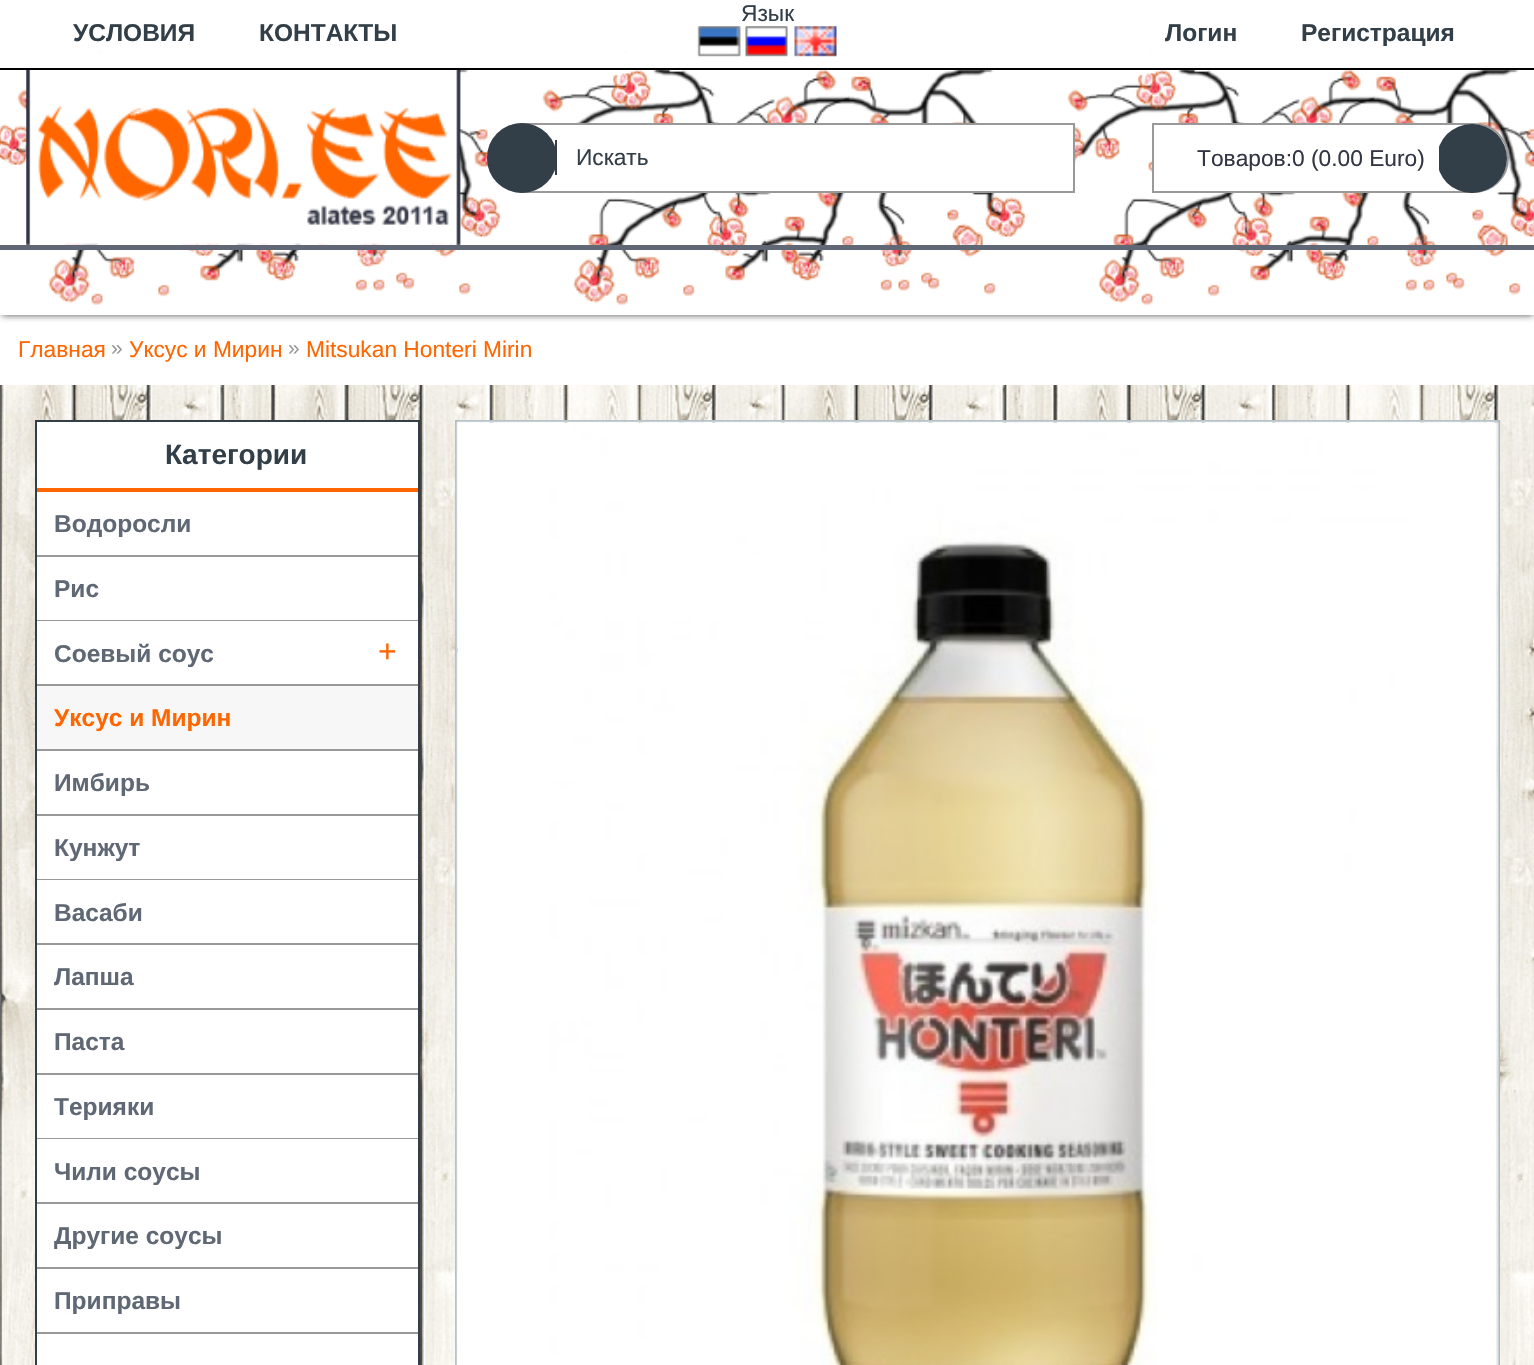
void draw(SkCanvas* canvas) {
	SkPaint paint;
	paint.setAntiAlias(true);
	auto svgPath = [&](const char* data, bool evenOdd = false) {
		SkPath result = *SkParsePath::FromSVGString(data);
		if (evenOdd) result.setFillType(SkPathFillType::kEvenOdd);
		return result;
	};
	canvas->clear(0xffffffff);
	canvas->drawImageRect(SkImages::DeferredFromEncodedData(SkData::MakeFromFileName("img1.png")), SkRect::MakeXYWH(0, 385, 1534, 980), SkSamplingOptions());
	paint.setColor(0xb3000000);
	paint.setMaskFilter(SkMaskFilter::MakeBlur(kNormal_SkBlurStyle, 3.5));
	canvas->drawRect(SkRect::MakeXYWH(2, 4, 1531, 311), paint);
	paint.setMaskFilter(nullptr);
	paint.setColor(0xffffffff);
	canvas->drawRect(SkRect::MakeXYWH(0, 0, 1534, 315), paint);
	canvas->drawImageRect(SkImages::DeferredFromEncodedData(SkData::MakeFromFileName("img2.png")), SkRect::MakeXYWH(0, 35, 1534, 270), SkSamplingOptions());
	SkFont f1(fontMgr->matchFamilyStyle("Liberation Sans", SkFontStyle::Normal()), 22.75);
	f1.setSubpixel(true);
	paint.setColor(0xff333f48);
	canvas->drawString("Язык", 741, 21, f1, paint);
	canvas->drawImageRect(SkImages::DeferredFromEncodedData(SkData::MakeFromFileName("img3.png")), SkRect::MakeXYWH(697, 26, 44, 31), SkSamplingOptions());
	canvas->drawImageRect(SkImages::DeferredFromEncodedData(SkData::MakeFromFileName("img4.png")), SkRect::MakeXYWH(745, 26, 43, 31), SkSamplingOptions());
	canvas->drawImageRect(SkImages::DeferredFromEncodedData(SkData::MakeFromFileName("img5.png")), SkRect::MakeXYWH(794, 26, 43, 31), SkSamplingOptions());
	SkFont f2(fontMgr->matchFamilyStyle("Liberation Sans", SkFontStyle::Bold()), 24.5);
	f2.setSubpixel(true);
	canvas->drawString("УСЛОВИЯ", 73, 41, f2, paint);
	canvas->drawString("КОНТАКТЫ", 259, 41, f2, paint);
	canvas->drawString("Логин", 1165, 41, f2, paint);
	canvas->drawString("Регистрация", 1301, 41, f2, paint);
	canvas->drawImageRect(SkImages::DeferredFromEncodedData(SkData::MakeFromFileName("img6.png")), SkRect::MakeXYWH(26, 70, 435, 175), SkSamplingOptions());
	paint.setColor(0xffffffff);
	canvas->drawPath(svgPath("M522 124H1074V192H522C503 192 488 177 488 158C488 139 503 124 522 124Z"), paint);
	paint.setStroke(true);
	paint.setStrokeWidth(2);
	paint.setColor(0xff999999);
	canvas->drawPath(svgPath("M522 124H1074V192H522C503 192 488 177 488 158C488 139 503 124 522 124Z"), paint);
	paint.setStroke(false);
	paint.setColor(0xff333f48);
	canvas->drawCircle(522, 158, 35, paint);
	canvas->drawRect(SkRect::MakeXYWH(555, 140, 2, 35), paint);
	canvas->drawString("Искать", 576, 165, f1, paint);
	paint.setColor(0xffffffff);
	canvas->drawPath(svgPath("M1153 124H1474C1493 124 1508 139 1508 158C1508 177 1493 192 1474 192H1153Z"), paint);
	paint.setStroke(true);
	paint.setColor(0xff999999);
	canvas->drawPath(svgPath("M1153 124H1474C1493 124 1508 139 1508 158C1508 177 1493 192 1474 192H1153Z"), paint);
	paint.setStroke(false);
	paint.setColor(0xff333745);
	canvas->drawString("Товаров:0 (0.00 Euro)", 1197, 166, f1, paint);
	paint.setColor(0xff333f48);
	canvas->drawRoundRect(SkRect::MakeXYWH(1437, 124, 70, 69), 34.5, 34.5, paint);
	paint.setColor(0xffffffff);
	canvas->drawRect(SkRect::MakeXYWH(1437, 142, 2, 33), paint);
	paint.setColor(0xff5f6874);
	canvas->drawRect(SkRect::MakeXYWH(0, 245, 1534, 5), paint);
	paint.setColor(0xff000000);
	canvas->drawRect(SkRect::MakeXYWH(0, 68, 1534, 2), paint);
	paint.setColor(0xffff6600);
	canvas->drawString("Главная", 18, 357, f1, paint);
	SkFont f3(fontMgr->matchFamilyStyle("Liberation Sans", SkFontStyle::Normal()), 21);
	f3.setSubpixel(true);
	paint.setColor(0xff999999);
	canvas->drawString("»", 111, 355, f3, paint);
	paint.setColor(0xffff6600);
	canvas->drawString("Уксус и Мирин", 129, 357, f1, paint);
	paint.setColor(0xff999999);
	canvas->drawString("»", 288, 355, f3, paint);
	paint.setColor(0xffff6600);
	canvas->drawString("Mitsukan Honteri Mirin", 306, 357, f1, paint);
	paint.setColor(0xffffffff);
	canvas->drawRect(SkRect::MakeXYWH(36, 421, 383, 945), paint);
	paint.setStroke(true);
	paint.setColor(0xff333f48);
	canvas->drawRect(SkRect::MakeXYWH(36, 421, 383, 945), paint);
	paint.setStroke(false);
	paint.setColor(0xffff6600);
	canvas->drawRect(SkRect::MakeXYWH(37, 488, 381, 4), paint);
	SkFont f4(fontMgr->matchFamilyStyle("Liberation Sans", SkFontStyle::Bold()), 28);
	f4.setSubpixel(true);
	paint.setColor(0xff333f48);
	canvas->drawString("Категории", 165, 464, f4, paint);
	paint.setColor(0xff999999);
	canvas->drawRect(SkRect::MakeXYWH(37, 555, 381, 2), paint);
	paint.setColor(0xff5f6874);
	canvas->drawString("Водоросли", 54, 532, f2, paint);
	paint.setColor(0xff999999);
	canvas->drawRect(SkRect::MakeXYWH(37, 620, 381, 1), paint);
	paint.setColor(0xff5f6874);
	canvas->drawString("Рис", 54, 597, f2, paint);
	paint.setColor(0xff999999);
	canvas->drawRect(SkRect::MakeXYWH(37, 684, 381, 2), paint);
	paint.setColor(0xff5f6874);
	canvas->drawString("Соевый соус", 54, 662, f2, paint);
	SkFont f5(fontMgr->matchFamilyStyle("Liberation Sans", SkFontStyle::Normal()), 32);
	f5.setSubpixel(true);
	paint.setColor(0xffff6600);
	canvas->drawString("+", 378, 662, f5, paint);
	paint.setColor(0xfff7f7f7);
	canvas->drawRect(SkRect::MakeXYWH(37, 686, 381, 63), paint);
	paint.setColor(0xff999999);
	canvas->drawRect(SkRect::MakeXYWH(37, 749, 381, 2), paint);
	paint.setColor(0xffff6600);
	canvas->drawString("Уксус и Мирин", 54, 726, f2, paint);
	paint.setColor(0xff999999);
	canvas->drawRect(SkRect::MakeXYWH(37, 814, 381, 2), paint);
	paint.setColor(0xff5f6874);
	canvas->drawString("Имбирь", 54, 791, f2, paint);
	paint.setColor(0xff999999);
	canvas->drawRect(SkRect::MakeXYWH(37, 879, 381, 1), paint);
	paint.setColor(0xff5f6874);
	canvas->drawString("Кунжут", 54, 856, f2, paint);
	paint.setColor(0xff999999);
	canvas->drawRect(SkRect::MakeXYWH(37, 943, 381, 2), paint);
	paint.setColor(0xff5f6874);
	canvas->drawString("Васаби", 54, 921, f2, paint);
	paint.setColor(0xff999999);
	canvas->drawRect(SkRect::MakeXYWH(37, 1008, 381, 2), paint);
	paint.setColor(0xff5f6874);
	canvas->drawString("Лапша", 54, 985, f2, paint);
	paint.setColor(0xff999999);
	canvas->drawRect(SkRect::MakeXYWH(37, 1073, 381, 2), paint);
	paint.setColor(0xff5f6874);
	canvas->drawString("Паста", 54, 1050, f2, paint);
	paint.setColor(0xff999999);
	canvas->drawRect(SkRect::MakeXYWH(37, 1138, 381, 1), paint);
	paint.setColor(0xff5f6874);
	canvas->drawString("Терияки", 54, 1115, f2, paint);
	paint.setColor(0xff999999);
	canvas->drawRect(SkRect::MakeXYWH(37, 1202, 381, 2), paint);
	paint.setColor(0xff5f6874);
	canvas->drawString("Чили соусы", 54, 1180, f2, paint);
	paint.setColor(0xff999999);
	canvas->drawRect(SkRect::MakeXYWH(37, 1267, 381, 2), paint);
	paint.setColor(0xff5f6874);
	canvas->drawString("Другие соусы", 54, 1244, f2, paint);
	paint.setColor(0xff999999);
	canvas->drawRect(SkRect::MakeXYWH(37, 1332, 381, 2), paint);
	paint.setColor(0xff5f6874);
	canvas->drawString("Приправы", 54, 1309, f2, paint);
	paint.setStroke(true);
	paint.setColor(0xffa9b8c0);
	canvas->drawRect(SkRect::MakeXYWH(456, 421, 1043, 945), paint);
	canvas->drawImageRect(SkImages::DeferredFromEncodedData(SkData::MakeFromFileName("img7.png")), SkRect::MakeXYWH(455, 420, 1044, 945), SkSamplingOptions());
}
